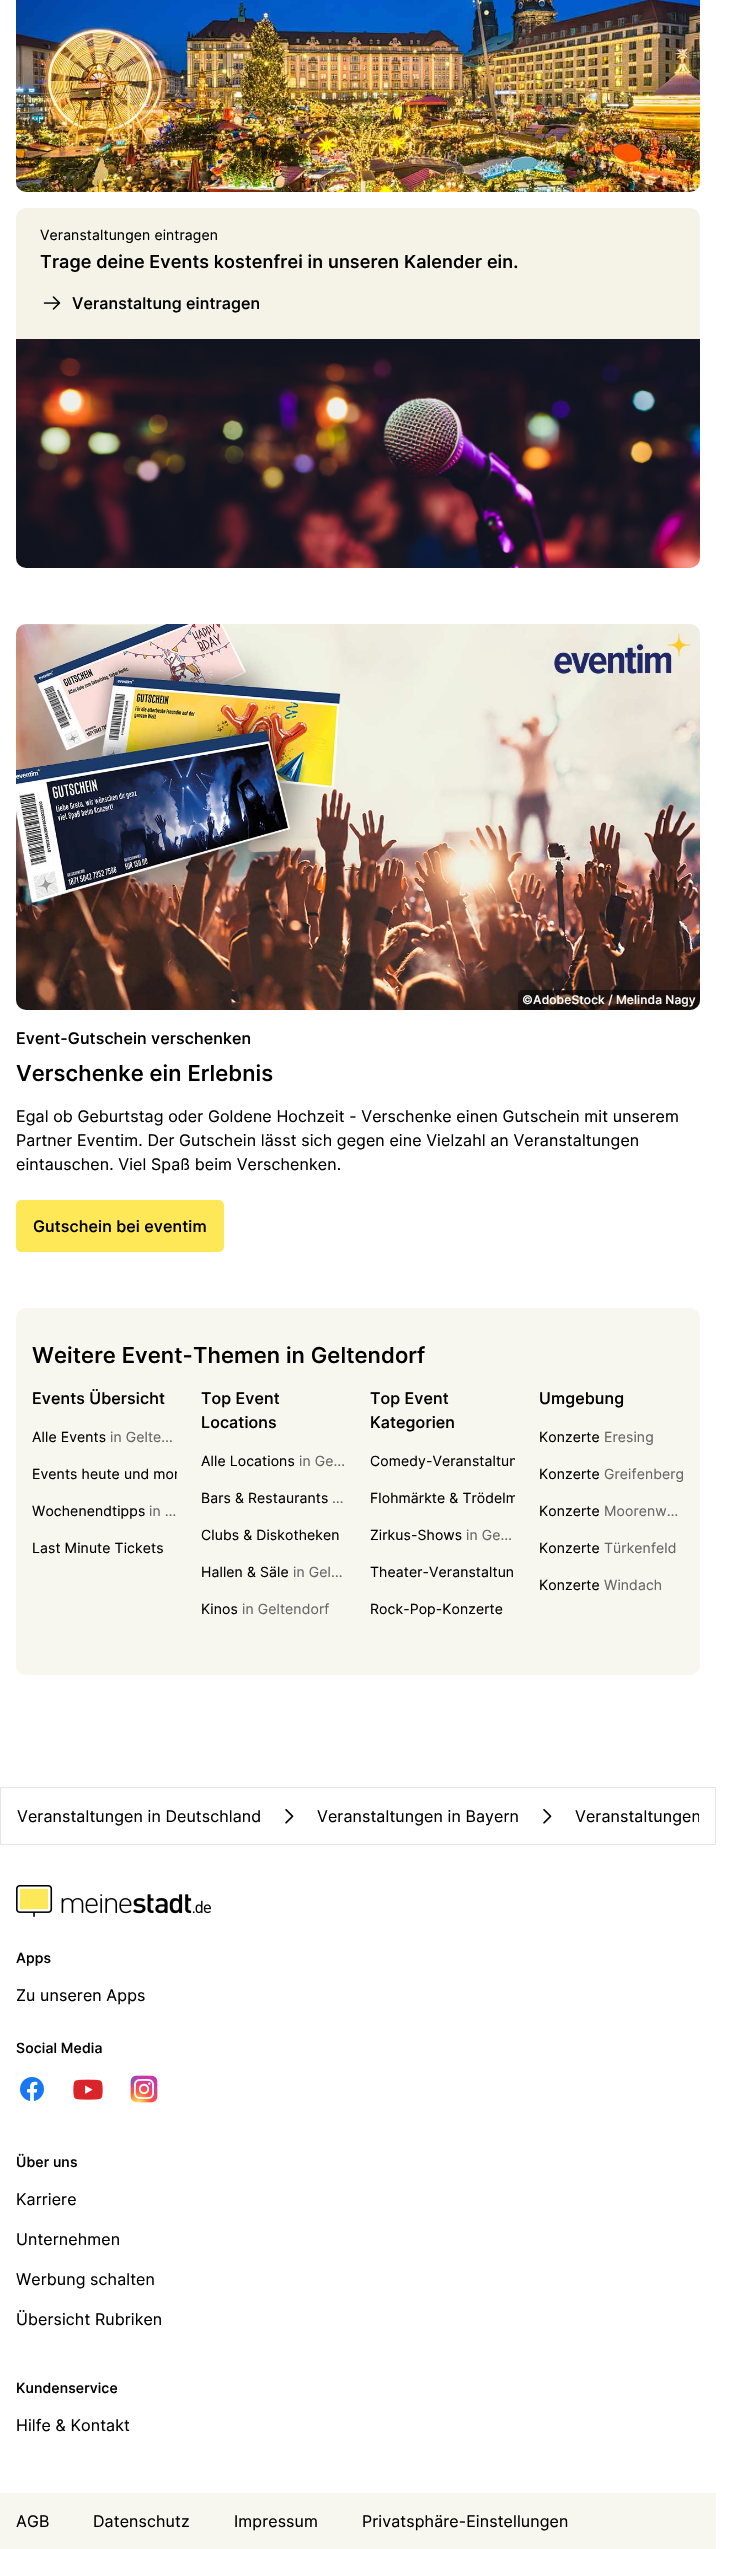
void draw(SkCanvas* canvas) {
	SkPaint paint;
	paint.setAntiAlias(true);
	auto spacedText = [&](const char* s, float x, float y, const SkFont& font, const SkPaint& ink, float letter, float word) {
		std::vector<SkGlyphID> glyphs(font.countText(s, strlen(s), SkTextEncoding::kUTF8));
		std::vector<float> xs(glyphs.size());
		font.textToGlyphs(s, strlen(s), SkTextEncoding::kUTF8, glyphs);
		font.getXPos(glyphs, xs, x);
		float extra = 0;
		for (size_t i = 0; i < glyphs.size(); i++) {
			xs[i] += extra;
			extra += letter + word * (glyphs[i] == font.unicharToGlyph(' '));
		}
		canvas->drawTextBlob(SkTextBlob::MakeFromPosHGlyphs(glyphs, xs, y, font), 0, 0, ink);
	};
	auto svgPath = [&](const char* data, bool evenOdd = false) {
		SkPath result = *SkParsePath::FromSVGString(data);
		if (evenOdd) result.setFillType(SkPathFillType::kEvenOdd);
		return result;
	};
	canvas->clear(0xffffffff);
	paint.setColor(0xfff5f2e8);
	canvas->drawRoundRect(SkRect::MakeXYWH(16, -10, 684, 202), 10, 10, paint);
	canvas->drawImageRect(SkImages::DeferredFromEncodedData(SkData::MakeFromFileName("img1.png")), SkRect::MakeXYWH(16, 0, 684, 192), SkSamplingOptions());
	canvas->drawRoundRect(SkRect::MakeXYWH(16, 208, 684, 360), 10, 10, paint);
	SkFont f1(fontMgr->matchFamilyStyle("Inter", SkFontStyle::Normal()), 14);
	f1.setSubpixel(true);
	paint.setColor(0xff000000);
	spacedText("Veranstaltungen eintragen", 40, 240, f1, paint, 0.1, 0);
	SkFont f2(fontMgr->matchFamilyStyle("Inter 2", SkFontStyle(500, SkFontStyle::kNormal_Width, SkFontStyle::kUpright_Slant)), 18);
	f2.setSubpixel(true);
	spacedText("Trage deine Events kostenfrei in unseren Kalender ein.", 40, 268, f2, paint, 0.1, 0);
	canvas->drawImageRect(SkImages::DeferredFromEncodedData(SkData::MakeFromFileName("img2.png")), SkRect::MakeXYWH(43, 296, 18, 14), SkSamplingOptions());
	SkFont f3(fontMgr->matchFamilyStyle("Inter", SkFontStyle(500, SkFontStyle::kNormal_Width, SkFontStyle::kUpright_Slant)), 16);
	f3.setSubpixel(true);
	spacedText("Veranstaltung eintragen", 72, 309, f3, paint, 0.1, 0);
	canvas->drawImageRect(SkImages::DeferredFromEncodedData(SkData::MakeFromFileName("img3.png")), SkRect::MakeXYWH(16, 339, 684, 229), SkSamplingOptions());
	canvas->drawImageRect(SkImages::DeferredFromEncodedData(SkData::MakeFromFileName("img4.png")), SkRect::MakeXYWH(16, 624, 684, 386), SkSamplingOptions());
	paint.setColor(0x80000000);
	canvas->drawPath(svgPath("M523 990H700V1000C700 1005.5 695.5 1010 690 1010H518V995C518 992 520 990 523 990Z"), paint);
	SkFont f4(fontMgr->matchFamilyStyle("Inter", SkFontStyle(500, SkFontStyle::kNormal_Width, SkFontStyle::kUpright_Slant)), 12);
	f4.setSubpixel(true);
	paint.setColor(0xffffffff);
	spacedText("©AdobeStock / Melinda Nagy", 522, 1004, f4, paint, 0.1, 0);
	paint.setColor(0xff000000);
	spacedText("Event-Gutschein verschenken", 16, 1044, f3, paint, 0.1, 0);
	SkFont f5(fontMgr->matchFamilyStyle("Inter 2", SkFontStyle(500, SkFontStyle::kNormal_Width, SkFontStyle::kUpright_Slant)), 22);
	f5.setSubpixel(true);
	spacedText("Verschenke ein Erlebnis", 16, 1081, f5, paint, 0.1, 0);
	SkFont f6(fontMgr->matchFamilyStyle("Inter", SkFontStyle::Normal()), 16);
	f6.setSubpixel(true);
	spacedText("Egal ob Geburtstag oder Goldene Hochzeit - Verschenke einen Gutschein mit unserem", 16, 1122, f6, paint, 0.1, 0);
	spacedText("Partner Eventim. Der Gutschein lässt sich gegen eine Vielzahl an Veranstaltungen", 16, 1146, f6, paint, 0.1, 0);
	spacedText("eintauschen. Viel Spaß beim Verschenken.", 16, 1170, f6, paint, 0.1, 0);
	paint.setColor(0xffffe857);
	canvas->drawRoundRect(SkRect::MakeXYWH(16.5, 1200.5, 207, 51), 4.5, 4.5, paint);
	paint.setStroke(true);
	paint.setStrokeWidth(1);
	canvas->drawRoundRect(SkRect::MakeXYWH(16.5, 1200.5, 207, 51), 4.5, 4.5, paint);
	paint.setStroke(false);
	paint.setColor(0xff000000);
	spacedText("Gutschein bei eventim", 33, 1232, f3, paint, 0.1, 0);
	paint.setColor(0xfff7f6ef);
	canvas->drawRoundRect(SkRect::MakeXYWH(16, 1308, 684, 367), 10, 10, paint);
	paint.setColor(0xff000000);
	spacedText("Weitere Event-Themen in Geltendorf", 32, 1363, f5, paint, 0.1, 0);
	spacedText("Events Übersicht", 32, 1404, f3, paint, 0.1, 0);
	spacedText("Alle Events", 32, 1442, f1, paint, 0.1, 0);
	paint.setColor(0xff666666);
	spacedText("in Gelte…", 110, 1442, f1, paint, 0.1, 0);
	canvas->save();
	canvas->clipRect(SkRect::MakeXYWH(32, 1463, 145, 21));
	paint.setColor(0xff000000);
	spacedText("Events heute und mor", 32, 1479, f1, paint, 0.1, 0);
	canvas->restore();
	spacedText("Wochenendtipps", 32, 1516, f1, paint, 0.1, 0);
	paint.setColor(0xff666666);
	spacedText("in …", 149, 1516, f1, paint, 0.1, 0);
	paint.setColor(0xff000000);
	spacedText("Last Minute Tickets", 32, 1553, f1, paint, 0.1, 0);
	spacedText("Top Event", 201, 1404, f3, paint, 0.1, 0);
	spacedText("Locations", 201, 1428, f3, paint, 0.1, 0);
	spacedText("Alle Locations", 201, 1466, f1, paint, 0.1, 0);
	paint.setColor(0xff666666);
	spacedText("in Ge…", 299, 1466, f1, paint, 0.1, 0);
	paint.setColor(0xff000000);
	spacedText("Bars & Restaurants", 201, 1503, f1, paint, 0.1, 0);
	paint.setColor(0xff666666);
	spacedText("…", 332, 1503, f1, paint, 0.1, 0);
	paint.setColor(0xff000000);
	spacedText("Clubs & Diskotheken", 201, 1540, f1, paint, 0.1, 0);
	spacedText("Hallen & Säle", 201, 1577, f1, paint, 0.1, 0);
	paint.setColor(0xff666666);
	spacedText("in Gel…", 293, 1577, f1, paint, 0.1, 0);
	paint.setColor(0xff000000);
	spacedText("Kinos", 201, 1614, f1, paint, 0.1, 0);
	paint.setColor(0xff666666);
	spacedText("in Geltendorf", 242, 1614, f1, paint, 0.1, 0);
	paint.setColor(0xff000000);
	spacedText("Top Event", 370, 1404, f3, paint, 0.1, 0);
	spacedText("Kategorien", 370, 1428, f3, paint, 0.1, 0);
	canvas->save();
	canvas->clipRect(SkRect::MakeXYWH(370, 1450, 145, 21));
	spacedText("Comedy-Veranstaltun", 370, 1466, f1, paint, 0.1, 0);
	canvas->restore();
	canvas->save();
	canvas->clipRect(SkRect::MakeXYWH(370, 1487, 145, 21));
	spacedText("Flohmärkte & Trödelm", 370, 1503, f1, paint, 0.1, 0);
	canvas->restore();
	spacedText("Zirkus-Shows", 370, 1540, f1, paint, 0.1, 0);
	paint.setColor(0xff666666);
	spacedText("in Ge…", 466, 1540, f1, paint, 0.1, 0);
	paint.setColor(0xff000000);
	spacedText("Theater-Veranstaltun", 370, 1577, f1, paint, 0.1, 0);
	spacedText("Rock-Pop-Konzerte", 370, 1614, f1, paint, 0.1, 0);
	spacedText("Umgebung", 539, 1404, f3, paint, 0.1, 0);
	spacedText("Konzerte", 539, 1442, f1, paint, 0.1, 0);
	paint.setColor(0xff666666);
	spacedText("Eresing", 604, 1442, f1, paint, 0.1, 0);
	paint.setColor(0xff000000);
	spacedText("Konzerte", 539, 1479, f1, paint, 0.1, 0);
	paint.setColor(0xff666666);
	spacedText("Greifenberg", 604, 1479, f1, paint, 0.1, 0);
	paint.setColor(0xff000000);
	spacedText("Konzerte", 539, 1516, f1, paint, 0.1, 0);
	paint.setColor(0xff666666);
	spacedText("Moorenw…", 604, 1516, f1, paint, 0.1, 0);
	paint.setColor(0xff000000);
	spacedText("Konzerte", 539, 1553, f1, paint, 0.1, 0);
	paint.setColor(0xff666666);
	spacedText("Türkenfeld", 604, 1553, f1, paint, 0.1, 0);
	paint.setColor(0xff000000);
	spacedText("Konzerte", 539, 1590, f1, paint, 0.1, 0);
	paint.setColor(0xff666666);
	spacedText("Windach", 604, 1590, f1, paint, 0.1, 0);
	paint.setStroke(true);
	paint.setColor(0xffe5e5e5);
	canvas->drawRect(SkRect::MakeXYWH(0.5, 1787.5, 715, 57), paint);
	paint.setStroke(false);
	paint.setColor(0xff000000);
	spacedText("Veranstaltungen in Deutschland", 17, 1822, f6, paint, 0.1, 0);
	canvas->drawImageRect(SkImages::DeferredFromEncodedData(SkData::MakeFromFileName("img5.png")), SkRect::MakeXYWH(285, 1809, 9, 15), SkSamplingOptions());
	spacedText("Veranstaltungen in Bayern", 317, 1822, f6, paint, 0.1, 0);
	canvas->drawImageRect(SkImages::DeferredFromEncodedData(SkData::MakeFromFileName("img5.png")), SkRect::MakeXYWH(543, 1809, 9, 15), SkSamplingOptions());
	canvas->save();
	canvas->clipRect(SkRect::MakeXYWH(17, 1788, 682, 56));
	spacedText("Veranstaltungen", 575, 1822, f6, paint, 0.1, 0);
	canvas->restore();
	canvas->drawImageRect(SkImages::DeferredFromEncodedData(SkData::MakeFromFileName("img6.png")), SkRect::MakeXYWH(16, 1885, 195, 32), SkSamplingOptions());
	SkFont f7(fontMgr->matchFamilyStyle("Inter", SkFontStyle(500, SkFontStyle::kNormal_Width, SkFontStyle::kUpright_Slant)), 14);
	f7.setSubpixel(true);
	spacedText("Apps", 16, 1963, f7, paint, 0.1, 0);
	spacedText("Zu unseren Apps", 16, 2001, f6, paint, 0.1, 0);
	spacedText("Social Media", 16, 2053, f7, paint, 0.1, 0);
	canvas->drawImageRect(SkImages::DeferredFromEncodedData(SkData::MakeFromFileName("img7.png")), SkRect::MakeXYWH(20, 2077, 24, 24), SkSamplingOptions());
	canvas->drawImageRect(SkImages::DeferredFromEncodedData(SkData::MakeFromFileName("img8.png")), SkRect::MakeXYWH(73, 2079, 30, 21), SkSamplingOptions());
	canvas->drawImageRect(SkImages::DeferredFromEncodedData(SkData::MakeFromFileName("img9.png")), SkRect::MakeXYWH(130, 2075, 28, 28), SkSamplingOptions());
	spacedText("Über uns", 16, 2167, f7, paint, 0.1, 0);
	spacedText("Karriere", 16, 2205, f6, paint, 0.1, 0);
	spacedText("Unternehmen", 16, 2245, f6, paint, 0.1, 0);
	spacedText("Werbung schalten", 16, 2285, f6, paint, 0.1, 0);
	spacedText("Übersicht Rubriken", 16, 2325, f6, paint, 0.1, 0);
	spacedText("Kundenservice", 16, 2393, f7, paint, 0.1, 0);
	spacedText("Hilfe & Kontakt", 16, 2431, f6, paint, 0.1, 0);
	paint.setColor(0xfff7f6ef);
	canvas->drawRect(SkRect::MakeXYWH(0, 2493, 716, 56), paint);
	paint.setColor(0xff000000);
	spacedText("AGB", 16, 2527, f6, paint, 0.1, 0);
	spacedText("Datenschutz", 93, 2527, f6, paint, 0.1, 0);
	spacedText("Impressum", 234, 2527, f6, paint, 0.1, 0);
	spacedText("Privatsphäre-Einstellungen", 362, 2527, f6, paint, 0.1, 0);
}
